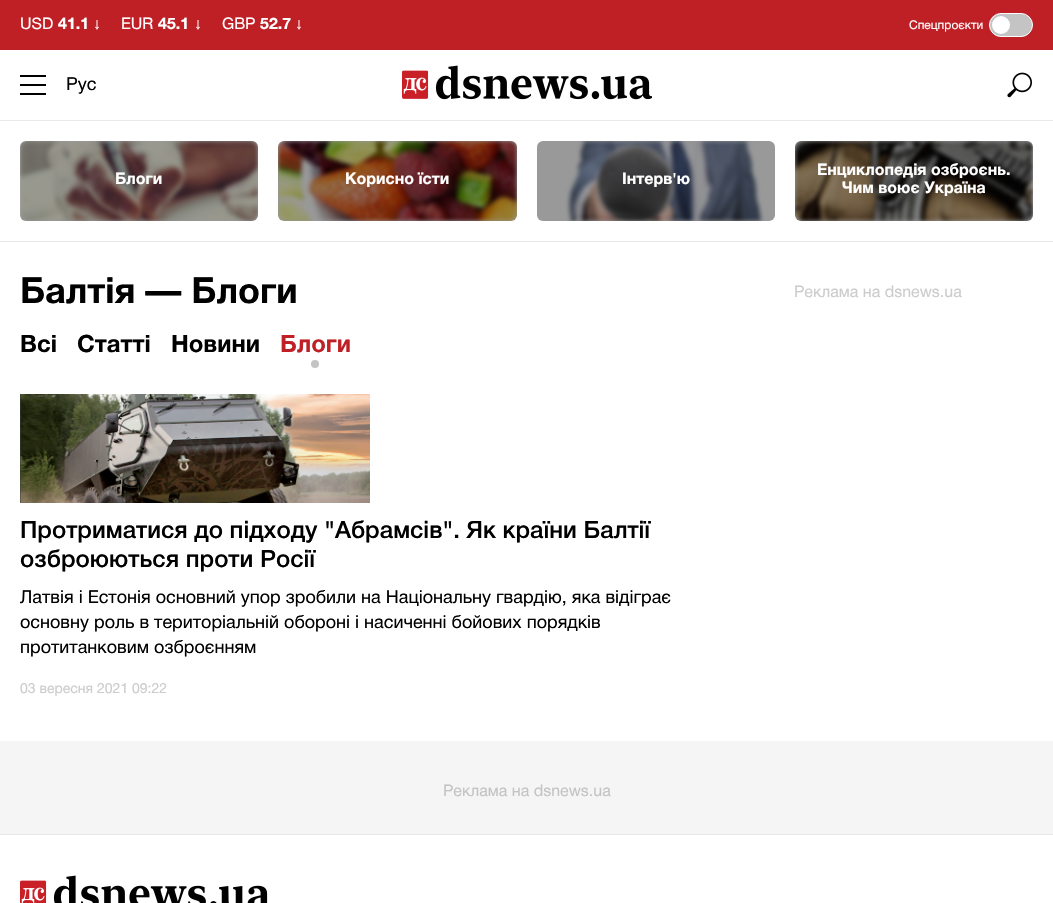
void draw(SkCanvas* canvas) {
	SkPaint paint;
	paint.setAntiAlias(true);
	canvas->clear(0xffffffff);
	paint.setColor(0xffbe2026);
	canvas->drawRect(SkRect::MakeXYWH(0, 0, 1053, 50), paint);
	SkFont f1(fontMgr->matchFamilyStyle("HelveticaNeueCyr", SkFontStyle::Normal()), 16);
	f1.setSubpixel(true);
	paint.setColor(0xffffffff);
	canvas->drawString("USD", 20, 29, f1, paint);
	SkFont f2(fontMgr->matchFamilyStyle("HelveticaNeueCyr", SkFontStyle::Bold()), 16);
	f2.setSubpixel(true);
	canvas->drawString("41.1", 58, 29, f2, paint);
	SkFont f3(fontMgr->matchFamilyStyle("Liberation Sans", SkFontStyle::Normal()), 16);
	f3.setSubpixel(true);
	canvas->drawString("↓", 93, 29, f3, paint);
	canvas->drawString("EUR", 121, 29, f1, paint);
	canvas->drawString("45.1", 158, 29, f2, paint);
	canvas->drawString("↓", 194, 29, f3, paint);
	canvas->drawString("GBP", 222, 29, f1, paint);
	canvas->drawString("52.7", 260, 29, f2, paint);
	canvas->drawString("↓", 295, 29, f3, paint);
	SkFont f4(fontMgr->matchFamilyStyle("HelveticaNeueCyr", SkFontStyle::Normal()), 12);
	f4.setSubpixel(true);
	canvas->drawString("Спецпроєкти", 909, 29, f4, paint);
	paint.setColor(0xffc4c4c4);
	canvas->drawRoundRect(SkRect::MakeXYWH(989.5, 13.5, 43, 23), 11.5, 11.5, paint);
	paint.setStroke(true);
	paint.setStrokeWidth(1);
	paint.setColor(0xffffffff);
	canvas->drawRoundRect(SkRect::MakeXYWH(989.5, 13.5, 43, 23), 11.5, 11.5, paint);
	paint.setStroke(false);
	canvas->drawCircle(1001, 25, 9, paint);
	paint.setColor(0xffe8e8e8);
	canvas->drawRect(SkRect::MakeXYWH(0, 120, 1053, 1), paint);
	paint.setColor(0xff000000);
	canvas->drawRect(SkRect::MakeXYWH(20, 75, 26, 2), paint);
	canvas->drawRect(SkRect::MakeXYWH(20, 84, 26, 2), paint);
	canvas->drawRect(SkRect::MakeXYWH(20, 93, 26, 2), paint);
	SkFont f5(fontMgr->matchFamilyStyle("HelveticaNeueCyr", SkFontStyle::Normal()), 18);
	f5.setSubpixel(true);
	canvas->drawString("Рус", 66, 90, f5, paint);
	canvas->drawImageRect(SkImages::DeferredFromEncodedData(SkData::MakeFromFileName("img1.png")), SkRect::MakeXYWH(402, 65, 250, 35), SkSamplingOptions());
	canvas->drawImageRect(SkImages::DeferredFromEncodedData(SkData::MakeFromFileName("img2.png")), SkRect::MakeXYWH(1007, 72, 25, 26), SkSamplingOptions());
	paint.setColor(0xffe8e8e8);
	canvas->drawRect(SkRect::MakeXYWH(0, 241, 1053, 1), paint);
	canvas->drawImageRect(SkImages::DeferredFromEncodedData(SkData::MakeFromFileName("img3.png")), SkRect::MakeXYWH(20, 141, 238, 80), SkSamplingOptions());
	paint.setColor(0x66000000);
	canvas->drawRoundRect(SkRect::MakeXYWH(20, 141, 238, 80), 6, 6, paint);
	{
		const SkColor colors[] = {0xffffffff, 0x00ffffff};
		const float stops[] = {0, 1};
		const SkPoint ends[] = {{0, 172}, {22, 172}};
		paint.setShader(SkGradientShader::MakeLinear(ends, colors, stops, 2, SkTileMode::kClamp));
		paint.setAlpha(255);
	}
	canvas->drawRect(SkRect::MakeXYWH(20, 144, 2, 74), paint);
	paint.setShader(nullptr);
	paint.setColor(0xffffffff);
	canvas->drawString("Блоги", 115, 184, f2, paint);
	canvas->drawImageRect(SkImages::DeferredFromEncodedData(SkData::MakeFromFileName("img4.png")), SkRect::MakeXYWH(278, 141, 239, 80), SkSamplingOptions());
	paint.setColor(0x66000000);
	canvas->drawRoundRect(SkRect::MakeXYWH(278, 141, 239, 80), 6, 6, paint);
	paint.setColor(0xffffffff);
	canvas->drawString("Корисно їсти", 345, 184, f2, paint);
	canvas->drawImageRect(SkImages::DeferredFromEncodedData(SkData::MakeFromFileName("img5.png")), SkRect::MakeXYWH(565, 141, 200, 80), SkSamplingOptions());
	paint.setColor(0x66000000);
	canvas->drawRoundRect(SkRect::MakeXYWH(537, 141, 238, 80), 6, 6, paint);
	paint.setColor(0xffffffff);
	canvas->drawString("Інтерв'ю", 622, 184, f2, paint);
	canvas->drawImageRect(SkImages::DeferredFromEncodedData(SkData::MakeFromFileName("img6.png")), SkRect::MakeXYWH(795, 141, 238, 80), SkSamplingOptions());
	paint.setColor(0x66000000);
	canvas->drawRoundRect(SkRect::MakeXYWH(795, 141, 238, 80), 6, 6, paint);
	paint.setColor(0xffffffff);
	canvas->drawString("Енциклопедія озброєнь.", 817, 175, f2, paint);
	canvas->drawString("Чим воює Україна", 842, 193, f2, paint);
	{
		const SkColor colors[] = {0x00ffffff, 0xffffffff};
		const float stops[] = {0, 1};
		const SkPoint ends[] = {{1031, 172}, {1053, 172}};
		paint.setShader(SkGradientShader::MakeLinear(ends, colors, stops, 2, SkTileMode::kClamp));
		paint.setAlpha(255);
	}
	canvas->drawRect(SkRect::MakeXYWH(1031, 143, 2, 76), paint);
	SkFont f6(fontMgr->matchFamilyStyle("HelveticaNeueCyr", SkFontStyle::Bold()), 36);
	f6.setSubpixel(true);
	paint.setShader(nullptr);
	paint.setColor(0xff000000);
	canvas->drawString("Балтія — Блоги", 20, 303, f6, paint);
	SkFont f7(fontMgr->matchFamilyStyle("HelveticaNeueCyr", SkFontStyle::Bold()), 24);
	f7.setSubpixel(true);
	canvas->drawString("Всі", 20, 352, f7, paint);
	canvas->drawString("Статті", 77, 352, f7, paint);
	canvas->drawString("Новини", 171, 352, f7, paint);
	paint.setColor(0xffbe2026);
	canvas->drawString("Блоги", 280, 352, f7, paint);
	paint.setColor(0xffc4c4c4);
	canvas->drawCircle(315, 364, 4, paint);
	canvas->drawImageRect(SkImages::DeferredFromEncodedData(SkData::MakeFromFileName("img7.png")), SkRect::MakeXYWH(20, 394, 350, 109), SkSamplingOptions());
	SkFont f8(fontMgr->matchFamilyStyle("HelveticaNeueCyr", SkFontStyle(500, SkFontStyle::kNormal_Width, SkFontStyle::kUpright_Slant)), 24);
	f8.setSubpixel(true);
	paint.setColor(0xff000000);
	canvas->drawString("Протриматися до підходу \"Абрамсів\". Як країни Балтії", 20, 538, f8, paint);
	canvas->drawString("озброюються проти Росії", 20, 567, f8, paint);
	canvas->drawString("Латвія і Естонія основний упор зробили на Національну гвардію, яка відіграє", 20, 603, f5, paint);
	canvas->drawString("основну роль в територіальній обороні і насиченні бойових порядків", 20, 628, f5, paint);
	canvas->drawString("протитанковим озброєнням", 20, 653, f5, paint);
	SkFont f9(fontMgr->matchFamilyStyle("HelveticaNeueCyr", SkFontStyle::Normal()), 14);
	f9.setSubpixel(true);
	paint.setColor(0xffcccccc);
	canvas->drawString("03 вересня 2021 09:22", 20, 693, f9, paint);
	canvas->drawString("Реклама на dsnews.ua", 794, 297, f1, paint);
	paint.setColor(0xfff5f5f5);
	canvas->drawRect(SkRect::MakeXYWH(0, 741, 1053, 93), paint);
	paint.setColor(0xffc4c4c4);
	canvas->drawString("Реклама на dsnews.ua", 443, 796, f1, paint);
	paint.setColor(0xffe8e8e8);
	canvas->drawRect(SkRect::MakeXYWH(0, 834, 1053, 1), paint);
	canvas->drawImageRect(SkImages::DeferredFromEncodedData(SkData::MakeFromFileName("img8.png")), SkRect::MakeXYWH(20, 875, 248, 28), SkSamplingOptions());
}
